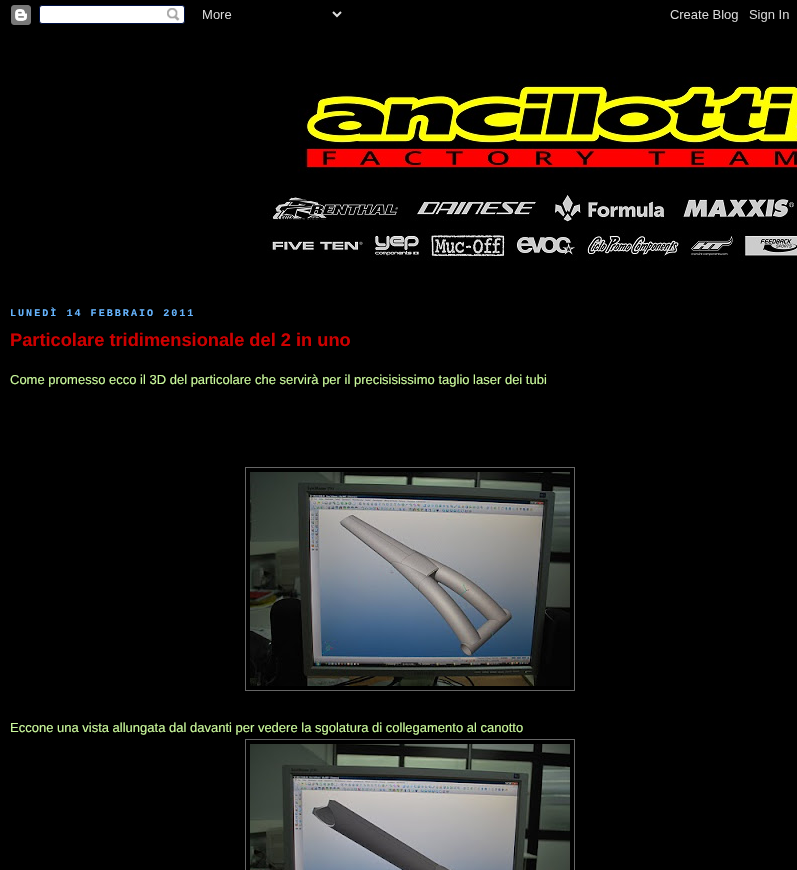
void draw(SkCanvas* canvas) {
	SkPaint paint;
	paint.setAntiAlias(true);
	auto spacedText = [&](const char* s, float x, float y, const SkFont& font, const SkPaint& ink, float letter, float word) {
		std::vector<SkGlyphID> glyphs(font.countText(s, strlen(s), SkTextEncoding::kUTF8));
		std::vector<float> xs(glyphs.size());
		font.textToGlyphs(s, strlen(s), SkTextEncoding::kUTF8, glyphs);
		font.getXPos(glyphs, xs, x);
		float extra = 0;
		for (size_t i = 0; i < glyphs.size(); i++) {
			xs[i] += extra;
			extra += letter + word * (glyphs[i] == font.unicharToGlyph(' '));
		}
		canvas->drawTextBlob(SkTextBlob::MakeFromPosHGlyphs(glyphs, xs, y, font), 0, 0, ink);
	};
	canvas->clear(0xff000000);
	canvas->drawImageRect(SkImages::DeferredFromEncodedData(SkData::MakeFromFileName("img1.png")), SkRect::MakeXYWH(11, 5, 778, 20), SkSamplingOptions());
	canvas->drawImageRect(SkImages::DeferredFromEncodedData(SkData::MakeFromFileName("img2.png")), SkRect::MakeXYWH(267, 77, 530, 184), SkSamplingOptions());
	SkFont f1(fontMgr->matchFamilyStyle("Liberation Mono", SkFontStyle::Bold()), 10.1);
	f1.setSubpixel(true);
	paint.setColor(0xff66b5ff);
	spacedText("LUNEDÌ 14 FEBBRAIO 2011", 10, 316, f1, paint, 2, 0);
	SkFont f2(fontMgr->matchFamilyStyle("Liberation Sans", SkFontStyle::Bold()), 18.25);
	f2.setSubpixel(true);
	paint.setColor(0xffcc0000);
	canvas->drawString("Particolare tridimensionale del 2 in uno", 10, 346, f2, paint);
	SkFont f3(fontMgr->matchFamilyStyle("Liberation Sans", SkFontStyle::Normal()), 13);
	f3.setSubpixel(true);
	paint.setColor(0xffcaf99b);
	canvas->drawString("Come promesso ecco il 3D del particolare che servirà per il precisisissimo taglio laser dei tubi", 10, 384, f3, paint);
	paint.setStroke(true);
	paint.setStrokeWidth(1);
	paint.setColor(0xff666666);
	canvas->drawRect(SkRect::MakeXYWH(245.5, 467.5, 329, 223), paint);
	canvas->drawImageRect(SkImages::DeferredFromEncodedData(SkData::MakeFromFileName("img3.png")), SkRect::MakeXYWH(250, 472, 320, 214), SkSamplingOptions());
	paint.setStroke(false);
	paint.setColor(0xffcaf99b);
	canvas->drawString("Eccone una vista allungata dal davanti per vedere la sgolatura di collegamento al canotto", 10, 732, f3, paint);
	paint.setStroke(true);
	paint.setColor(0xff666666);
	canvas->drawRect(SkRect::MakeXYWH(245.5, 739.5, 329, 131), paint);
	canvas->drawImageRect(SkImages::DeferredFromEncodedData(SkData::MakeFromFileName("img4.png")), SkRect::MakeXYWH(250, 744, 320, 126), SkSamplingOptions());
}
